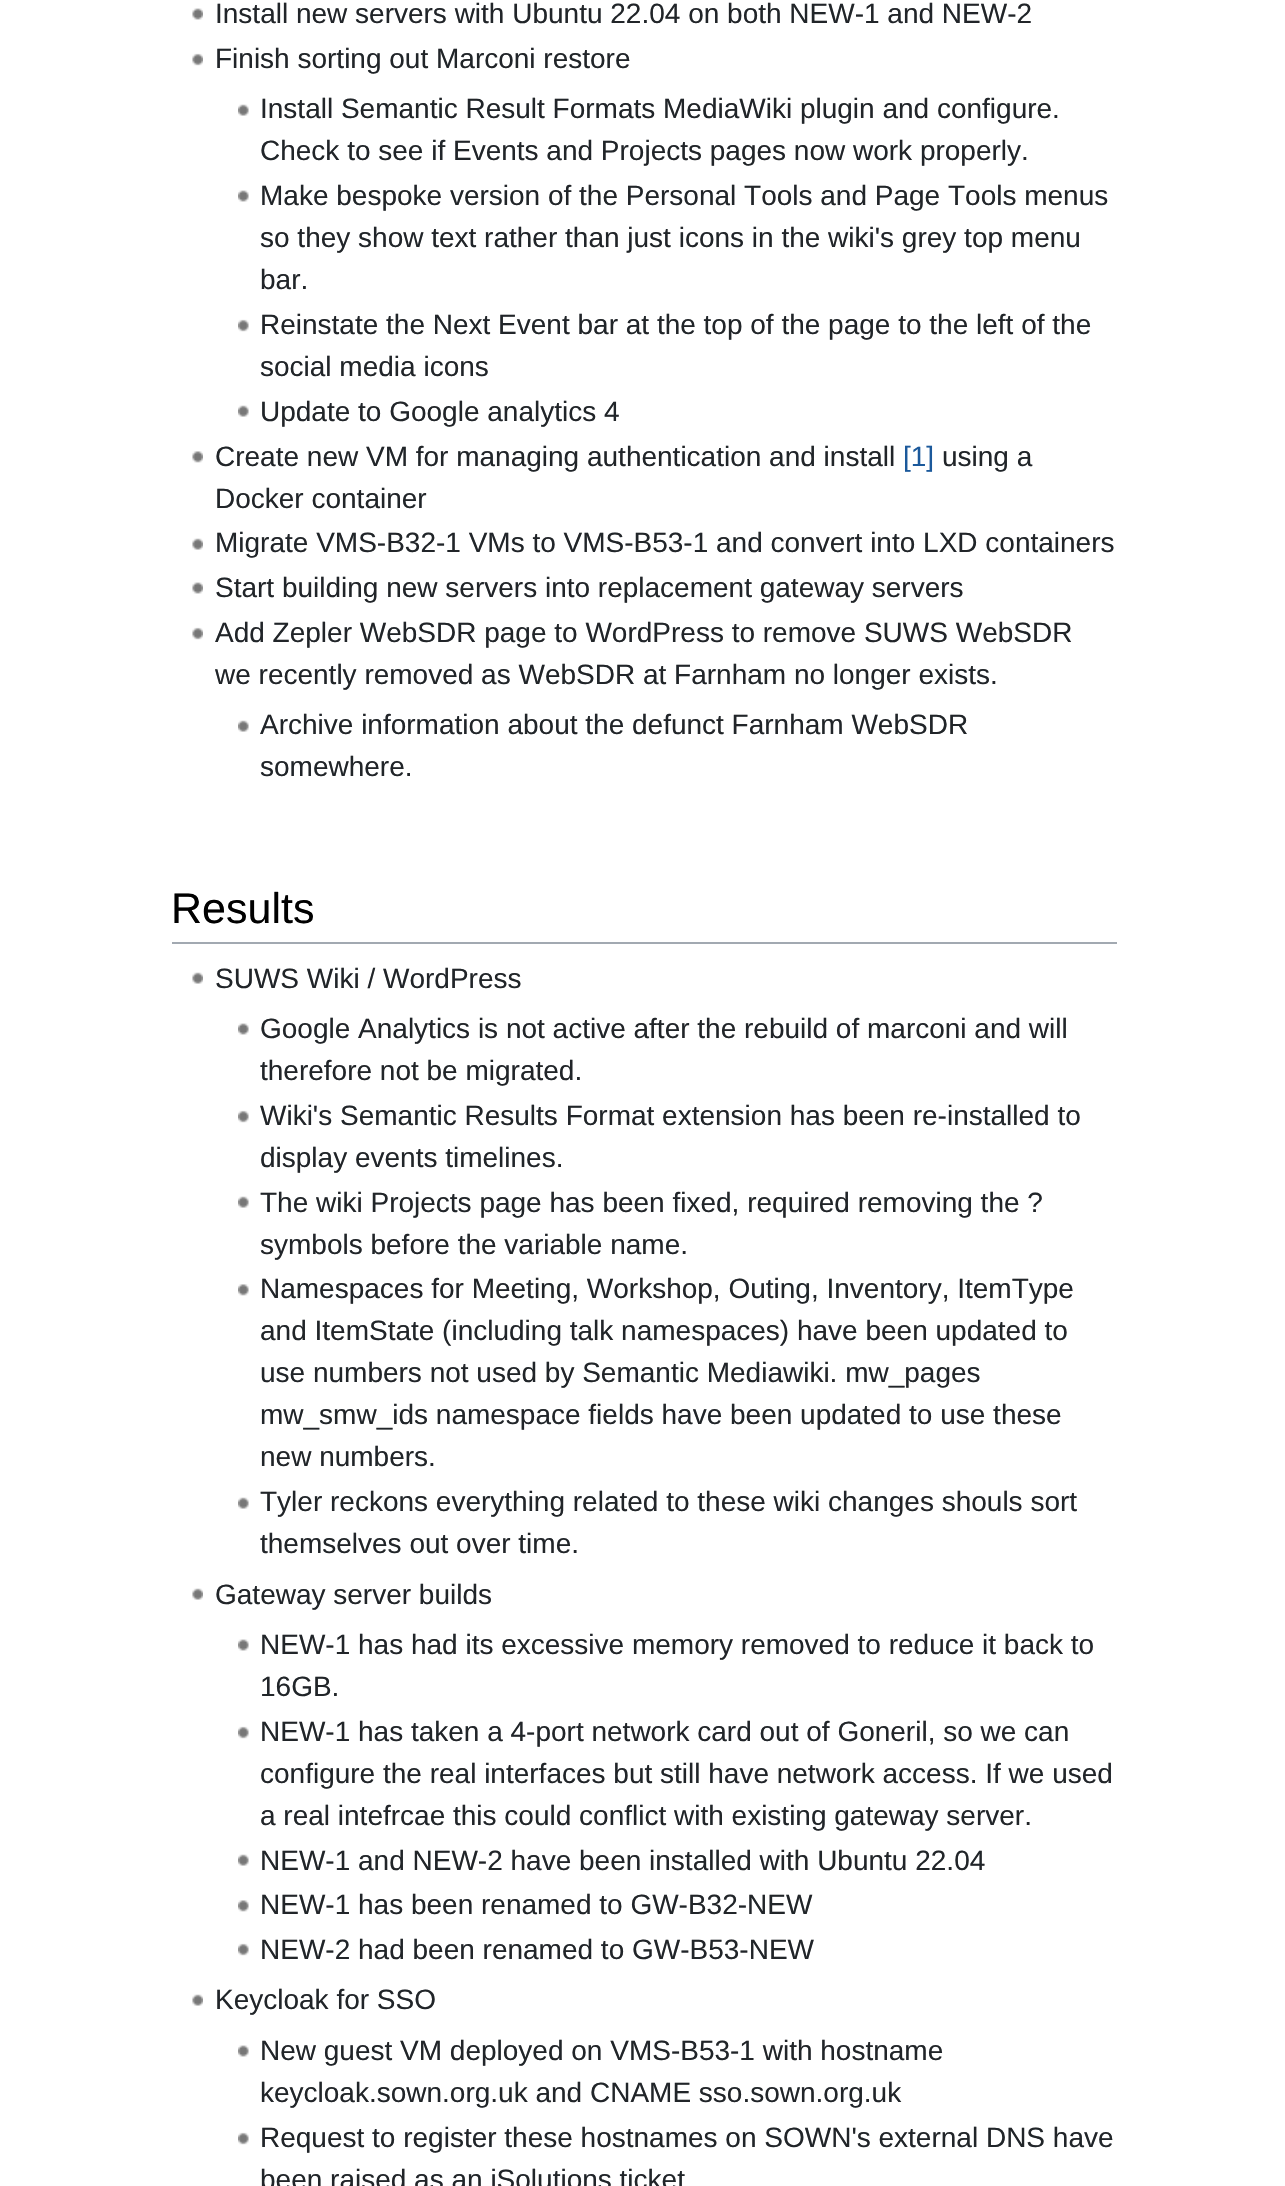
void draw(SkCanvas* canvas) {
	SkPaint paint;
	paint.setAntiAlias(true);
	canvas->clear(0xffffffff);
	canvas->drawImageRect(SkImages::DeferredFromEncodedData(SkData::MakeFromFileName("img1.png")), SkRect::MakeXYWH(192, 8, 11, 12), SkSamplingOptions());
	SkFont f1(fontMgr->matchFamilyStyle("Liberation Sans", SkFontStyle::Normal()), 28);
	f1.setSubpixel(true);
	paint.setColor(0xff212529);
	canvas->drawString("Install new servers with Ubuntu 22.04 on both NEW-1 and NEW-2", 215, 23, f1, paint);
	canvas->drawImageRect(SkImages::DeferredFromEncodedData(SkData::MakeFromFileName("img2.png")), SkRect::MakeXYWH(192, 53, 11, 13), SkSamplingOptions());
	canvas->drawString("Finish sorting out Marconi restore", 215, 68, f1, paint);
	canvas->drawImageRect(SkImages::DeferredFromEncodedData(SkData::MakeFromFileName("img3.png")), SkRect::MakeXYWH(238, 104, 11, 12), SkSamplingOptions());
	canvas->drawString("Install Semantic Result Formats MediaWiki plugin and configure.", 260, 118, f1, paint);
	canvas->drawString("Check to see if Events and Projects pages now work properly.", 260, 160, f1, paint);
	canvas->drawImageRect(SkImages::DeferredFromEncodedData(SkData::MakeFromFileName("img4.png")), SkRect::MakeXYWH(238, 190, 11, 12), SkSamplingOptions());
	canvas->drawString("Make bespoke version of the Personal Tools and Page Tools menus", 260, 205, f1, paint);
	canvas->drawString("so they show text rather than just icons in the wiki's grey top menu", 260, 247, f1, paint);
	canvas->drawString("bar.", 260, 289, f1, paint);
	canvas->drawImageRect(SkImages::DeferredFromEncodedData(SkData::MakeFromFileName("img5.png")), SkRect::MakeXYWH(238, 319, 11, 13), SkSamplingOptions());
	canvas->drawString("Reinstate the Next Event bar at the top of the page to the left of the", 260, 334, f1, paint);
	canvas->drawString("social media icons", 260, 376, f1, paint);
	canvas->drawImageRect(SkImages::DeferredFromEncodedData(SkData::MakeFromFileName("img3.png")), SkRect::MakeXYWH(238, 405, 11, 12), SkSamplingOptions());
	canvas->drawString("Update to Google analytics 4", 260, 421, f1, paint);
	canvas->drawImageRect(SkImages::DeferredFromEncodedData(SkData::MakeFromFileName("img6.png")), SkRect::MakeXYWH(192, 451, 11, 12), SkSamplingOptions());
	canvas->drawString("Create new VM for managing authentication and install", 215, 466, f1, paint);
	paint.setColor(0xff1b599b);
	canvas->drawString("[1]", 903, 466, f1, paint);
	paint.setColor(0xff212529);
	canvas->drawString("using a", 942, 466, f1, paint);
	canvas->drawString("Docker container", 215, 508, f1, paint);
	canvas->drawImageRect(SkImages::DeferredFromEncodedData(SkData::MakeFromFileName("img7.png")), SkRect::MakeXYWH(192, 538, 11, 12), SkSamplingOptions());
	canvas->drawString("Migrate VMS-B32-1 VMs to VMS-B53-1 and convert into LXD containers", 215, 552, f1, paint);
	canvas->drawImageRect(SkImages::DeferredFromEncodedData(SkData::MakeFromFileName("img1.png")), SkRect::MakeXYWH(192, 582, 11, 12), SkSamplingOptions());
	canvas->drawString("Start building new servers into replacement gateway servers", 215, 597, f1, paint);
	canvas->drawImageRect(SkImages::DeferredFromEncodedData(SkData::MakeFromFileName("img2.png")), SkRect::MakeXYWH(192, 627, 11, 13), SkSamplingOptions());
	canvas->drawString("Add Zepler WebSDR page to WordPress to remove SUWS WebSDR", 215, 642, f1, paint);
	canvas->drawString("we recently removed as WebSDR at Farnham no longer exists.", 215, 684, f1, paint);
	canvas->drawImageRect(SkImages::DeferredFromEncodedData(SkData::MakeFromFileName("img3.png")), SkRect::MakeXYWH(238, 720, 11, 12), SkSamplingOptions());
	canvas->drawString("Archive information about the defunct Farnham WebSDR", 260, 734, f1, paint);
	canvas->drawString("somewhere.", 260, 776, f1, paint);
	paint.setColor(0xffa2a9b1);
	canvas->drawRect(SkRect::MakeXYWH(172, 942, 945, 2), paint);
	SkFont f2(fontMgr->matchFamilyStyle("Liberation Sans", SkFontStyle::Normal()), 43);
	f2.setSubpixel(true);
	paint.setColor(0xff000000);
	canvas->drawString("Results", 171, 923, f2, paint);
	canvas->drawImageRect(SkImages::DeferredFromEncodedData(SkData::MakeFromFileName("img7.png")), SkRect::MakeXYWH(192, 972, 11, 12), SkSamplingOptions());
	paint.setColor(0xff212529);
	canvas->drawString("SUWS Wiki / WordPress", 215, 988, f1, paint);
	canvas->drawImageRect(SkImages::DeferredFromEncodedData(SkData::MakeFromFileName("img4.png")), SkRect::MakeXYWH(238, 1023, 11, 12), SkSamplingOptions());
	canvas->drawString("Google Analytics is not active after the rebuild of marconi and will", 260, 1038, f1, paint);
	canvas->drawString("therefore not be migrated.", 260, 1080, f1, paint);
	canvas->drawImageRect(SkImages::DeferredFromEncodedData(SkData::MakeFromFileName("img5.png")), SkRect::MakeXYWH(238, 1110, 11, 13), SkSamplingOptions());
	canvas->drawString("Wiki's Semantic Results Format extension has been re-installed to", 260, 1125, f1, paint);
	canvas->drawString("display events timelines.", 260, 1167, f1, paint);
	canvas->drawImageRect(SkImages::DeferredFromEncodedData(SkData::MakeFromFileName("img3.png")), SkRect::MakeXYWH(238, 1196, 11, 12), SkSamplingOptions());
	canvas->drawString("The wiki Projects page has been fixed, required removing the ?", 260, 1212, f1, paint);
	canvas->drawString("symbols before the variable name.", 260, 1254, f1, paint);
	canvas->drawImageRect(SkImages::DeferredFromEncodedData(SkData::MakeFromFileName("img8.png")), SkRect::MakeXYWH(238, 1284, 11, 12), SkSamplingOptions());
	canvas->drawString("Namespaces for Meeting, Workshop, Outing, Inventory, ItemType", 260, 1298, f1, paint);
	canvas->drawString("and ItemState (including talk namespaces) have been updated to", 260, 1340, f1, paint);
	canvas->drawString("use numbers not used by Semantic Mediawiki. mw_pages", 260, 1382, f1, paint);
	canvas->drawString("mw_smw_ids namespace fields have been updated to use these", 260, 1424, f1, paint);
	canvas->drawString("new numbers.", 260, 1466, f1, paint);
	canvas->drawImageRect(SkImages::DeferredFromEncodedData(SkData::MakeFromFileName("img3.png")), SkRect::MakeXYWH(238, 1497, 11, 12), SkSamplingOptions());
	canvas->drawString("Tyler reckons everything related to these wiki changes shouls sort", 260, 1511, f1, paint);
	canvas->drawString("themselves out over time.", 260, 1553, f1, paint);
	canvas->drawImageRect(SkImages::DeferredFromEncodedData(SkData::MakeFromFileName("img7.png")), SkRect::MakeXYWH(192, 1588, 11, 12), SkSamplingOptions());
	canvas->drawString("Gateway server builds", 215, 1604, f1, paint);
	canvas->drawImageRect(SkImages::DeferredFromEncodedData(SkData::MakeFromFileName("img4.png")), SkRect::MakeXYWH(238, 1639, 11, 12), SkSamplingOptions());
	canvas->drawString("NEW-1 has had its excessive memory removed to reduce it back to", 260, 1654, f1, paint);
	canvas->drawString("16GB.", 260, 1696, f1, paint);
	canvas->drawImageRect(SkImages::DeferredFromEncodedData(SkData::MakeFromFileName("img5.png")), SkRect::MakeXYWH(238, 1726, 11, 13), SkSamplingOptions());
	canvas->drawString("NEW-1 has taken a 4-port network card out of Goneril, so we can", 260, 1741, f1, paint);
	canvas->drawString("configure the real interfaces but still have network access. If we used", 260, 1783, f1, paint);
	canvas->drawString("a real intefrcae this could conflict with existing gateway server.", 260, 1825, f1, paint);
	canvas->drawImageRect(SkImages::DeferredFromEncodedData(SkData::MakeFromFileName("img3.png")), SkRect::MakeXYWH(238, 1854, 11, 12), SkSamplingOptions());
	canvas->drawString("NEW-1 and NEW-2 have been installed with Ubuntu 22.04", 260, 1870, f1, paint);
	canvas->drawImageRect(SkImages::DeferredFromEncodedData(SkData::MakeFromFileName("img8.png")), SkRect::MakeXYWH(238, 1900, 11, 12), SkSamplingOptions());
	canvas->drawString("NEW-1 has been renamed to GW-B32-NEW", 260, 1914, f1, paint);
	canvas->drawImageRect(SkImages::DeferredFromEncodedData(SkData::MakeFromFileName("img5.png")), SkRect::MakeXYWH(238, 1943, 11, 13), SkSamplingOptions());
	canvas->drawString("NEW-2 had been renamed to GW-B53-NEW", 260, 1959, f1, paint);
	canvas->drawImageRect(SkImages::DeferredFromEncodedData(SkData::MakeFromFileName("img7.png")), SkRect::MakeXYWH(192, 1994, 11, 12), SkSamplingOptions());
	canvas->drawString("Keycloak for SSO", 215, 2009, f1, paint);
	canvas->drawImageRect(SkImages::DeferredFromEncodedData(SkData::MakeFromFileName("img4.png")), SkRect::MakeXYWH(238, 2045, 11, 12), SkSamplingOptions());
	canvas->drawString("New guest VM deployed on VMS-B53-1 with hostname", 260, 2060, f1, paint);
	canvas->drawString("keycloak.sown.org.uk and CNAME sso.sown.org.uk", 260, 2102, f1, paint);
	canvas->drawImageRect(SkImages::DeferredFromEncodedData(SkData::MakeFromFileName("img5.png")), SkRect::MakeXYWH(238, 2132, 11, 13), SkSamplingOptions());
	canvas->drawString("Request to register these hostnames on SOWN's external DNS have", 260, 2147, f1, paint);
	canvas->drawString("been raised as an iSolutions ticket", 260, 2189, f1, paint);
}
